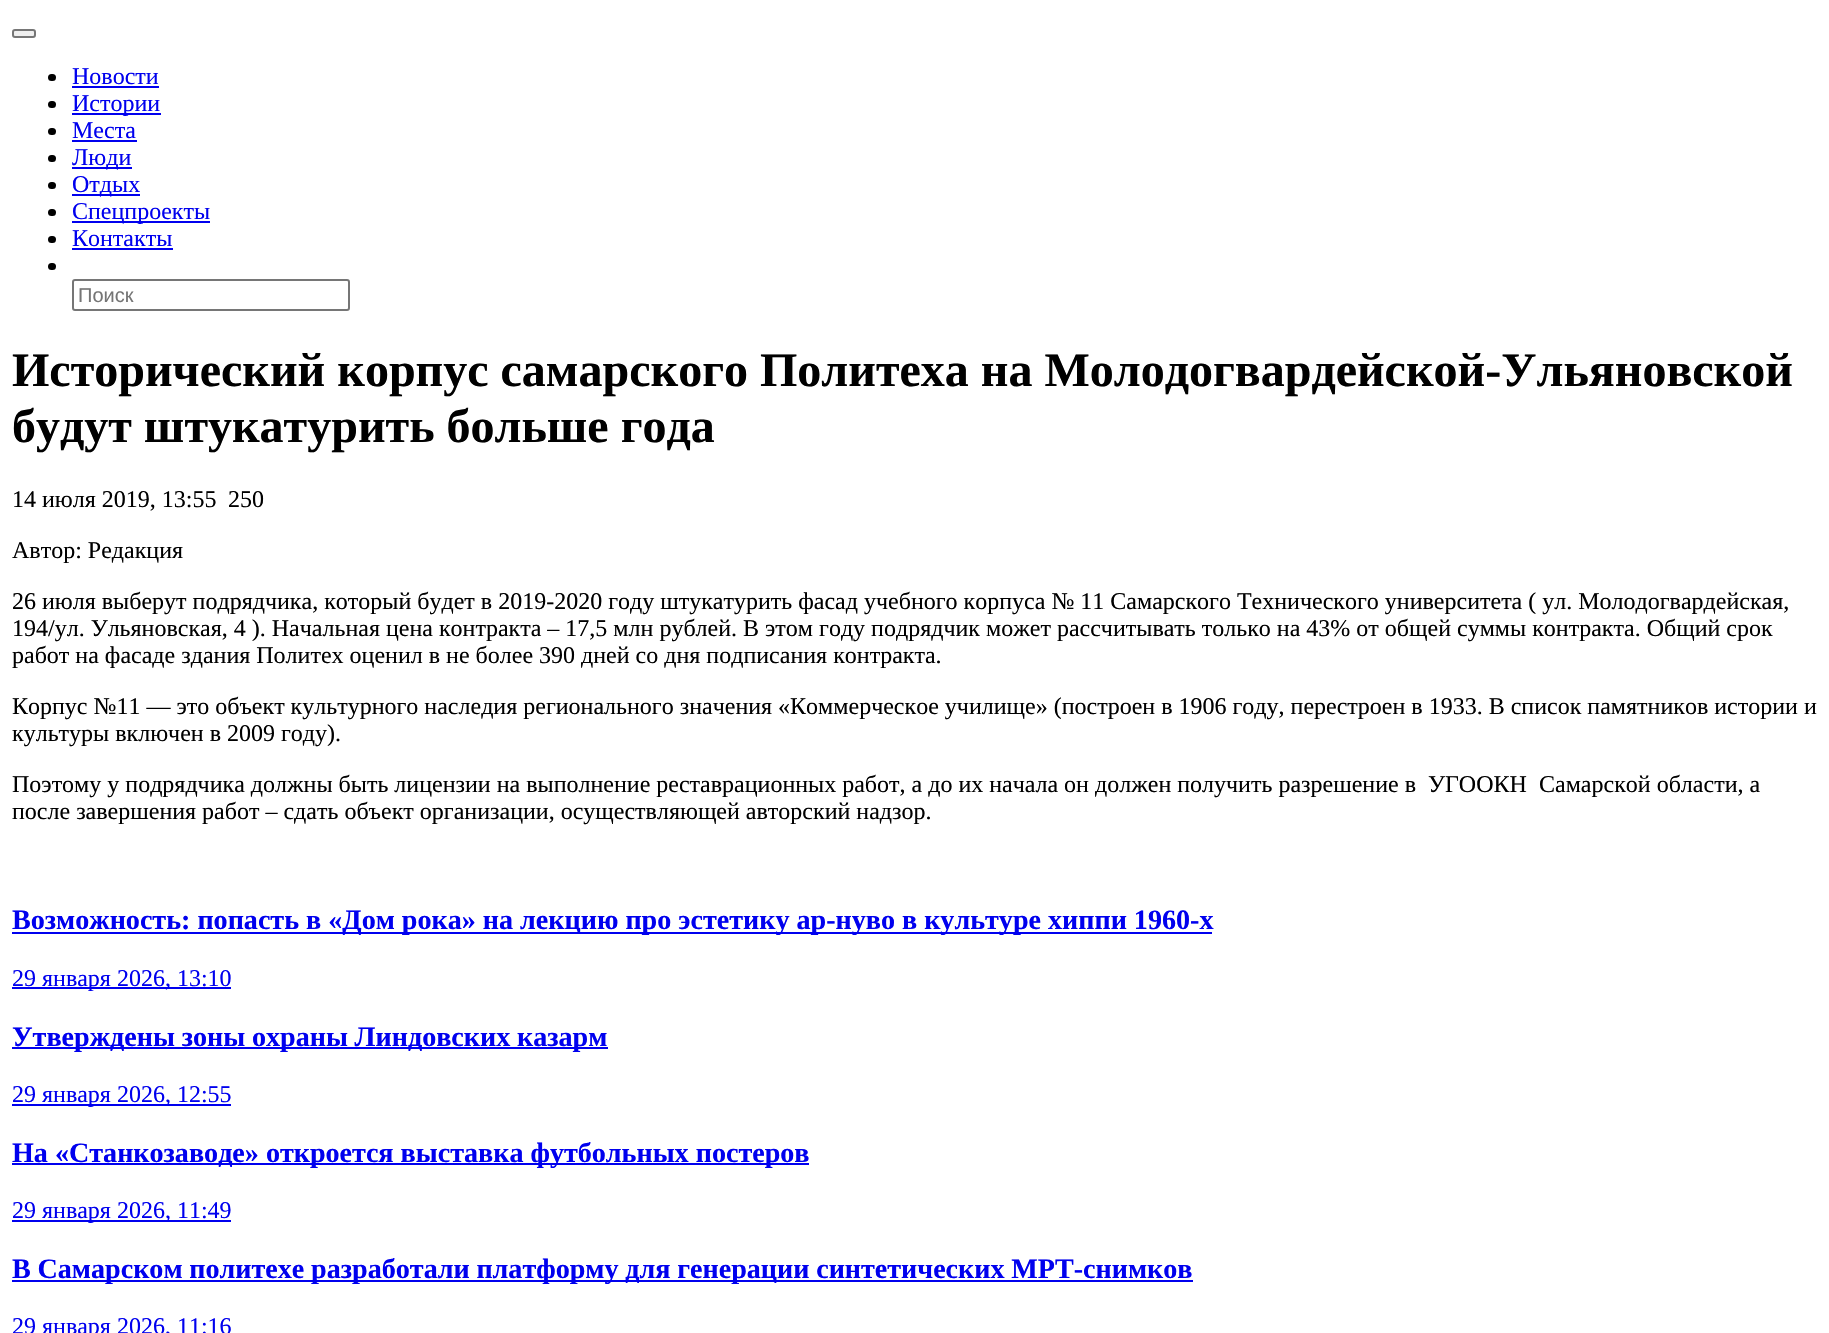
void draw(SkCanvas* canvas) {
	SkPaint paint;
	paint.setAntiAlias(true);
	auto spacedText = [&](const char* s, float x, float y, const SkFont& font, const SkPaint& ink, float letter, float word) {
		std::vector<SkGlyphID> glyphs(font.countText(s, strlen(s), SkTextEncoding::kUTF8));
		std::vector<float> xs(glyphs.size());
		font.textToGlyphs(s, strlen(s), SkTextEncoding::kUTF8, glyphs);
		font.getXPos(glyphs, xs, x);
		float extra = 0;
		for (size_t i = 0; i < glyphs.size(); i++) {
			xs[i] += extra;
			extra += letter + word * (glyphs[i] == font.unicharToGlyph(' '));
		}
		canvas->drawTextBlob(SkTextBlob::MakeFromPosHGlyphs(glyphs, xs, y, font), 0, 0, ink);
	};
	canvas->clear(0xffffffff);
	paint.setColor(0xffefefef);
	canvas->drawRoundRect(SkRect::MakeXYWH(13, 30, 22, 7), 2, 2, paint);
	paint.setStroke(true);
	paint.setStrokeWidth(2);
	paint.setColor(0xff767676);
	canvas->drawRoundRect(SkRect::MakeXYWH(13, 30, 22, 7), 2, 2, paint);
	paint.setStroke(false);
	paint.setColor(0xff000000);
	canvas->drawRoundRect(SkRect::MakeXYWH(48, 74, 8, 7), 3.5, 3.5, paint);
	SkFont f1(fontMgr->matchFamilyStyle("Liberation Serif", SkFontStyle::Normal()), 24);
	f1.setSubpixel(true);
	paint.setColor(0xff0000ee);
	canvas->drawString("Новости", 72, 84, f1, paint);
	canvas->drawRect(SkRect::MakeXYWH(72, 86, 87, 2), paint);
	paint.setColor(0xff000000);
	canvas->drawRoundRect(SkRect::MakeXYWH(48, 101, 8, 7), 3.5, 3.5, paint);
	paint.setColor(0xff0000ee);
	canvas->drawRect(SkRect::MakeXYWH(72, 113, 89, 2), paint);
	canvas->drawString("Истории", 72, 111, f1, paint);
	paint.setColor(0xff000000);
	canvas->drawRoundRect(SkRect::MakeXYWH(48, 128, 8, 7), 3.5, 3.5, paint);
	paint.setColor(0xff0000ee);
	canvas->drawString("Места", 72, 138, f1, paint);
	canvas->drawRect(SkRect::MakeXYWH(72, 140, 65, 2), paint);
	paint.setColor(0xff000000);
	canvas->drawRoundRect(SkRect::MakeXYWH(48, 155, 8, 7), 3.5, 3.5, paint);
	paint.setColor(0xff0000ee);
	canvas->drawRect(SkRect::MakeXYWH(72, 167, 60, 2), paint);
	canvas->drawString("Люди", 72, 165, f1, paint);
	paint.setColor(0xff000000);
	canvas->drawRoundRect(SkRect::MakeXYWH(48, 182, 8, 7), 3.5, 3.5, paint);
	paint.setColor(0xff0000ee);
	canvas->drawRect(SkRect::MakeXYWH(72, 194, 68, 2), paint);
	canvas->drawString("Отдых", 72, 192, f1, paint);
	paint.setColor(0xff000000);
	canvas->drawRoundRect(SkRect::MakeXYWH(48, 209, 8, 7), 3.5, 3.5, paint);
	paint.setColor(0xff0000ee);
	canvas->drawRect(SkRect::MakeXYWH(72, 221, 138, 2), paint);
	canvas->drawString("Спецпроекты", 72, 219, f1, paint);
	paint.setColor(0xff000000);
	canvas->drawRoundRect(SkRect::MakeXYWH(48, 236, 8, 7), 3.5, 3.5, paint);
	paint.setColor(0xff0000ee);
	canvas->drawString("Контакты", 72, 246, f1, paint);
	canvas->drawRect(SkRect::MakeXYWH(72, 248, 101, 2), paint);
	paint.setColor(0xff000000);
	canvas->drawRoundRect(SkRect::MakeXYWH(48, 263, 8, 7), 3.5, 3.5, paint);
	paint.setStroke(true);
	paint.setColor(0xff767676);
	canvas->drawRoundRect(SkRect::MakeXYWH(73, 280, 276, 30), 2, 2, paint);
	SkFont f2(fontMgr->matchFamilyStyle("Liberation Sans", SkFontStyle::Normal()), 20);
	f2.setSubpixel(true);
	paint.setStroke(false);
	paint.setColor(0xff757575);
	canvas->drawString("Поиск", 78, 302, f2, paint);
	SkFont f3(fontMgr->matchFamilyStyle("Liberation Serif", SkFontStyle::Bold()), 48);
	f3.setSubpixel(true);
	paint.setColor(0xff000000);
	canvas->drawString("Исторический корпус самарского Политеха на Молодогвардейской-Ульяновской", 12, 386, f3, paint);
	canvas->drawString("будут штукатурить больше года", 12, 442, f3, paint);
	canvas->drawString("14 июля 2019, 13:55", 12, 507, f1, paint);
	canvas->drawString("250", 228, 507, f1, paint);
	canvas->drawString("Автор: Редакция", 12, 558, f1, paint);
	canvas->drawString("26 июля выберут подрядчика, который будет в 2019-2020 году штукатурить фасад учебного корпуса № 11 Самарского Технического университета ( ул. Молодогвардейская,", 12, 609, f1, paint);
	canvas->drawString("194/ул. Ульяновская, 4 ). Начальная цена контракта – 17,5 млн рублей. В этом году подрядчик может рассчитывать только на 43% от общей суммы контракта. Общий срок", 12, 636, f1, paint);
	canvas->drawString("работ на фасаде здания Политех оценил в не более 390 дней со дня подписания контракта.", 12, 663, f1, paint);
	canvas->drawString("Корпус №11 — это объект культурного наследия регионального значения «Коммерческое училище» (построен в 1906 году, перестроен в 1933. В список памятников истории и", 12, 714, f1, paint);
	canvas->drawString("культуры включен в 2009 году).", 12, 741, f1, paint);
	canvas->drawString("Поэтому у подрядчика должны быть лицензии на выполнение реставрационных работ, а до их начала он должен получить разрешение в", 12, 792, f1, paint);
	canvas->drawString("УГООКН", 1428, 792, f1, paint);
	canvas->drawString("Самарской области, а", 1539, 792, f1, paint);
	canvas->drawString("после завершения работ – сдать объект организации, осуществляющей авторский надзор.", 12, 819, f1, paint);
	paint.setColor(0xff0000ee);
	canvas->drawRect(SkRect::MakeXYWH(12, 932, 1200, 2), paint);
	SkFont f4(fontMgr->matchFamilyStyle("Liberation Serif", SkFontStyle::Bold()), 28.1);
	f4.setSubpixel(true);
	canvas->drawString("Возможность: попасть в «Дом рока» на лекцию про эстетику ар-нуво в культуре хиппи 1960-х", 12, 929, f4, paint);
	canvas->drawRect(SkRect::MakeXYWH(12, 987, 219, 2), paint);
	canvas->drawString("29 января 2026, 13:10", 12, 986, f1, paint);
	canvas->drawRect(SkRect::MakeXYWH(12, 1047, 596, 2), paint);
	spacedText("Утверждены зоны охраны Линдовских казарм", 12, 1046, f4, paint, 0, -0.25);
	canvas->drawRect(SkRect::MakeXYWH(12, 1104, 219, 2), paint);
	canvas->drawString("29 января 2026, 12:55", 12, 1102, f1, paint);
	canvas->drawRect(SkRect::MakeXYWH(12, 1163, 797, 2), paint);
	canvas->drawString("На «Станкозаводе» откроется выставка футбольных постеров", 12, 1162, f4, paint);
	canvas->drawRect(SkRect::MakeXYWH(12, 1220, 219, 2), paint);
	canvas->drawString("29 января 2026, 11:49", 12, 1218, f1, paint);
	canvas->drawRect(SkRect::MakeXYWH(12, 1280, 1181, 2), paint);
	spacedText("В Самарском политехе разработали платформу для генерации синтетических МРТ-снимков", 12, 1278, f4, paint, 0, -0.25);
	canvas->drawString("29 января 2026, 11:16", 12, 1334, f1, paint);
}
